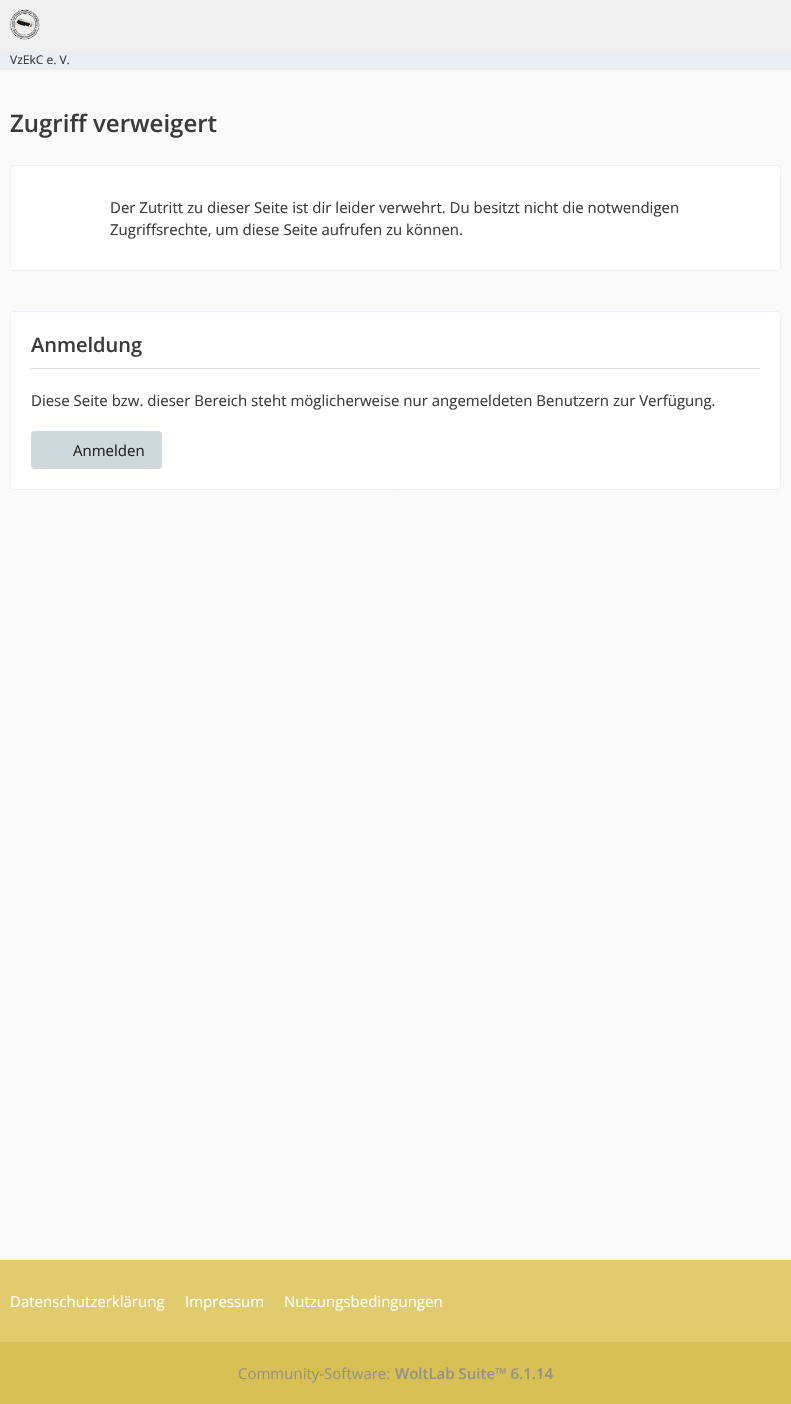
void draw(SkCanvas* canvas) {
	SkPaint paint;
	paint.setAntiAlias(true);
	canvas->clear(0xfffafafa);
	paint.setColor(0xfff0f0f0);
	canvas->drawRect(SkRect::MakeXYWH(0, 0, 791, 50), paint);
	canvas->drawImageRect(SkImages::DeferredFromEncodedData(SkData::MakeFromFileName("img1.png")), SkRect::MakeXYWH(10, 9, 30, 31), SkSamplingOptions());
	paint.setColor(0xffeceff1);
	canvas->drawRect(SkRect::MakeXYWH(0, 50, 791, 20), paint);
	SkFont f1(fontMgr->matchFamilyStyle("Open Sans", SkFontStyle::Normal()), 12);
	f1.setSubpixel(true);
	paint.setColor(0xff3a3a3d);
	canvas->drawString("VzEkC e. V.", 10, 64, f1, paint);
	SkFont f2(fontMgr->matchFamilyStyle("Open Sans", SkFontStyle(600, SkFontStyle::kNormal_Width, SkFontStyle::kUpright_Slant)), 24);
	f2.setSubpixel(true);
	canvas->drawString("Zugriff verweigert", 10, 132, f2, paint);
	paint.setColor(0xffffffff);
	canvas->drawRoundRect(SkRect::MakeXYWH(10.5, 165.5, 770, 105), 3.5, 3.5, paint);
	paint.setStroke(true);
	paint.setStrokeWidth(1);
	paint.setColor(0xffecf1f7);
	canvas->drawRoundRect(SkRect::MakeXYWH(10.5, 165.5, 770, 105), 3.5, 3.5, paint);
	SkFont f3(fontMgr->matchFamilyStyle("Open Sans", SkFontStyle::Normal()), 15);
	f3.setSubpixel(true);
	paint.setStroke(false);
	paint.setColor(0xff3a3a3d);
	canvas->drawString("Der Zutritt zu dieser Seite ist dir leider verwehrt. Du besitzt nicht die notwendigen", 110, 213, f3, paint);
	canvas->drawString("Zugriffsrechte, um diese Seite aufrufen zu können.", 110, 235, f3, paint);
	paint.setColor(0xffffffff);
	canvas->drawRoundRect(SkRect::MakeXYWH(10.5, 311.5, 770, 178), 3.5, 3.5, paint);
	paint.setStroke(true);
	paint.setColor(0xffecf1f7);
	canvas->drawRoundRect(SkRect::MakeXYWH(10.5, 311.5, 770, 178), 3.5, 3.5, paint);
	paint.setStroke(false);
	paint.setColor(0xffe0e0e0);
	canvas->drawRect(SkRect::MakeXYWH(31, 368, 729, 1), paint);
	SkFont f4(fontMgr->matchFamilyStyle("Open Sans", SkFontStyle(600, SkFontStyle::kNormal_Width, SkFontStyle::kUpright_Slant)), 20);
	f4.setSubpixel(true);
	paint.setColor(0xff3a3a3d);
	canvas->drawString("Anmeldung", 31, 352, f4, paint);
	canvas->drawString("Diese Seite bzw. dieser Bereich steht möglicherweise nur angemeldeten Benutzern zur Verfügung.", 31, 406, f3, paint);
	paint.setColor(0xffcfd8dc);
	canvas->drawRoundRect(SkRect::MakeXYWH(31, 431, 131, 38), 4, 4, paint);
	paint.setColor(0xff212121);
	canvas->drawString("Anmelden", 73, 456, f3, paint);
	paint.setColor(0xffe0cb6e);
	canvas->drawRect(SkRect::MakeXYWH(0, 1260, 791, 82), paint);
	paint.setColor(0xffffffff);
	canvas->drawString("Datenschutzerklärung", 10, 1307, f3, paint);
	canvas->drawString("Impressum", 185, 1307, f3, paint);
	canvas->drawString("Nutzungsbedingungen", 284, 1307, f3, paint);
	paint.setColor(0xffd9c052);
	canvas->drawRect(SkRect::MakeXYWH(0, 1342, 791, 62), paint);
	paint.setColor(0xff919191);
	canvas->drawString("Community-Software:", 238, 1379, f3, paint);
	SkFont f5(fontMgr->matchFamilyStyle("Open Sans", SkFontStyle(600, SkFontStyle::kNormal_Width, SkFontStyle::kUpright_Slant)), 15);
	f5.setSubpixel(true);
	canvas->drawString("WoltLab Suite™ 6.1.14", 395, 1379, f5, paint);
}
